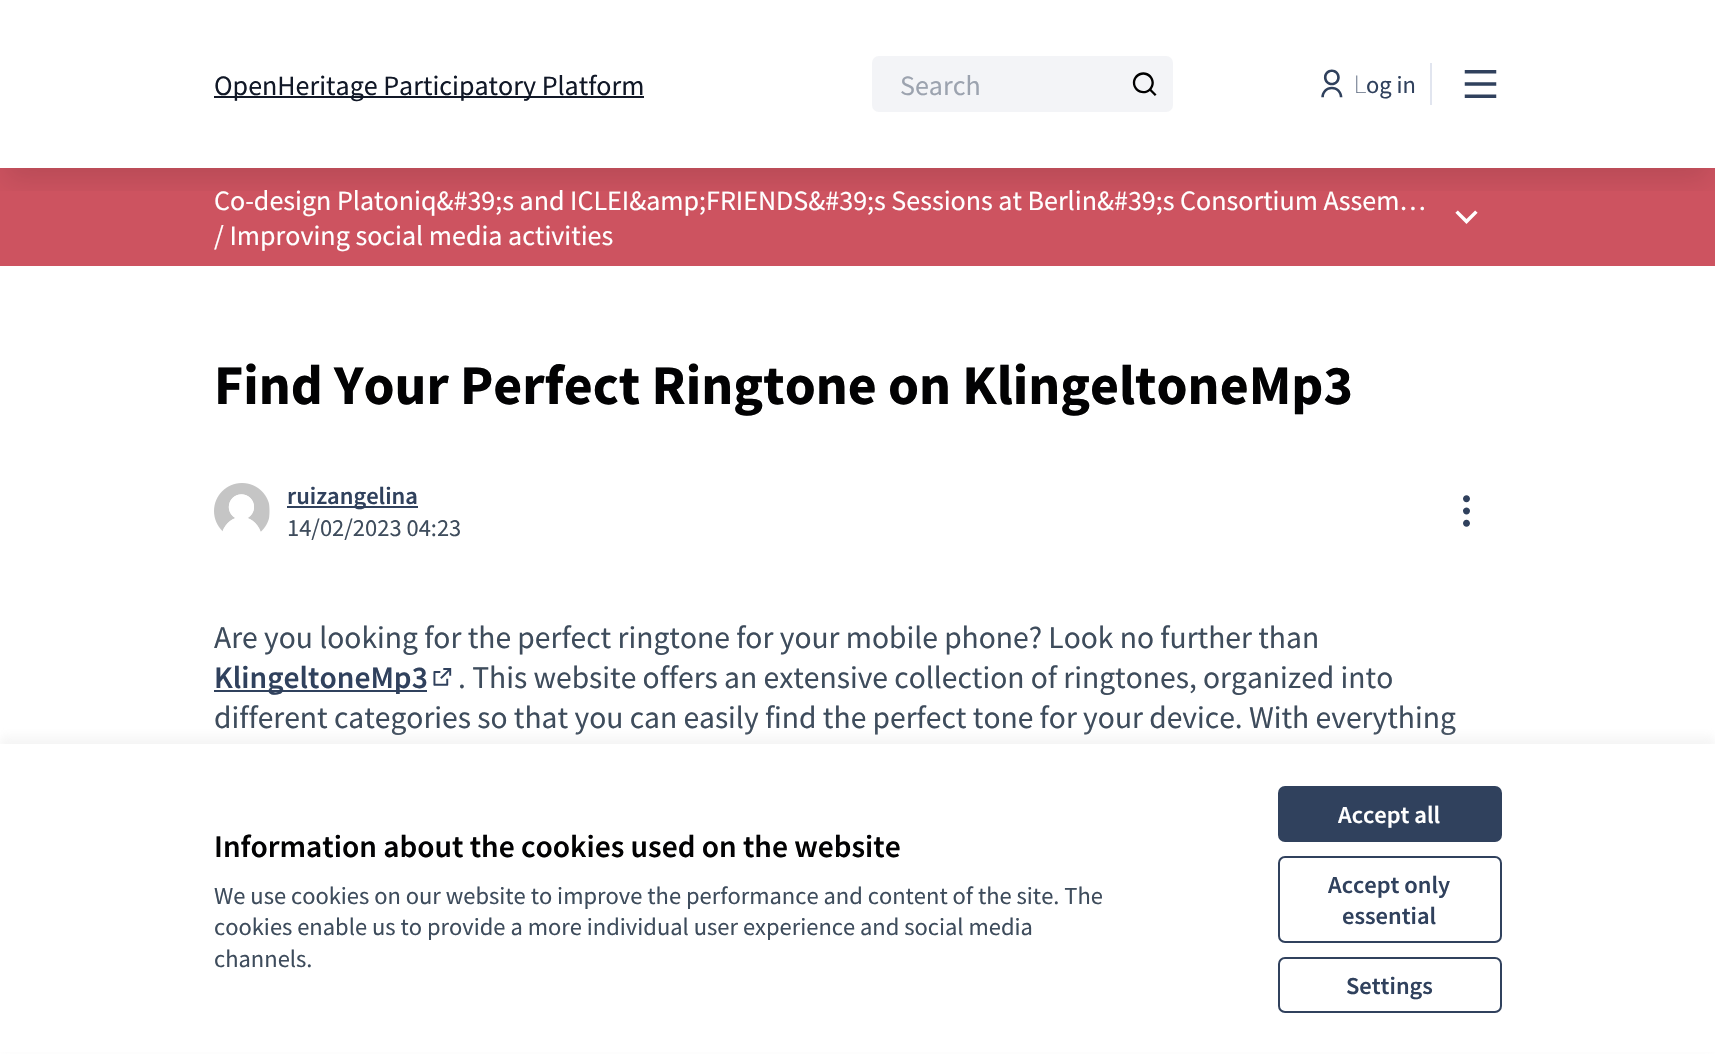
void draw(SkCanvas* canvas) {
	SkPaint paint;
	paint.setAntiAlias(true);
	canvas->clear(0xffffffff);
	paint.setColor(0xffcd5360);
	canvas->drawRect(SkRect::MakeXYWH(0, 168, 1715, 98), paint);
	canvas->drawImageRect(SkImages::DeferredFromEncodedData(SkData::MakeFromFileName("img4.png")), SkRect::MakeXYWH(1455, 210, 23, 14), SkSamplingOptions());
	canvas->save();
	canvas->clipRect(SkRect::MakeXYWH(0, 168, 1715, 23));
	paint.setColor(0x1a000000);
	paint.setMaskFilter(SkMaskFilter::MakeBlur(kNormal_SkBlurStyle, 13));
	canvas->drawRect(SkRect::MakeXYWH(5, 23, 1705, 157), paint);
	paint.setMaskFilter(nullptr);
	canvas->restore();
	paint.setColor(0xff111827);
	canvas->drawRect(SkRect::MakeXYWH(214, 96, 430, 2), paint);
	SkFont f1(fontMgr->matchFamilyStyle("Source Sans Pro", SkFontStyle::Normal()), 28);
	f1.setSubpixel(true);
	canvas->drawString("OpenHeritage Participatory Platform", 214, 95, f1, paint);
	paint.setColor(0xfff3f4f7);
	canvas->drawRoundRect(SkRect::MakeXYWH(872, 56, 301, 56), 7, 7, paint);
	paint.setColor(0xff9ca3af);
	canvas->drawString("Search", 900, 95, f1, paint);
	canvas->drawImageRect(SkImages::DeferredFromEncodedData(SkData::MakeFromFileName("img1.png")), SkRect::MakeXYWH(1132, 72, 25, 24), SkSamplingOptions());
	canvas->drawImageRect(SkImages::DeferredFromEncodedData(SkData::MakeFromFileName("img2.png")), SkRect::MakeXYWH(1321, 69, 22, 29), SkSamplingOptions());
	SkFont f2(fontMgr->matchFamilyStyle("Noto Sans", SkFontStyle(100, SkFontStyle::kNormal_Width, SkFontStyle::kUpright_Slant)), 24.5);
	f2.setSubpixel(true);
	paint.setColor(0xff30415d);
	canvas->drawString("L", 1354, 93, f2, paint);
	SkFont f3(fontMgr->matchFamilyStyle("Source Sans Pro", SkFontStyle::Normal()), 24.5);
	f3.setSubpixel(true);
	canvas->drawString("og in", 1366, 93, f3, paint);
	paint.setColor(0xffe1e5ef);
	canvas->drawRect(SkRect::MakeXYWH(1430, 63, 2, 42), paint);
	canvas->drawImageRect(SkImages::DeferredFromEncodedData(SkData::MakeFromFileName("img3.png")), SkRect::MakeXYWH(1464, 70, 33, 28), SkSamplingOptions());
	paint.setColor(0xffffffff);
	canvas->drawString("Co-design Platoniq&#39;s and ICLEI&amp;FRIENDS&#39;s Sessions at Berlin&#39;s Consortium Assem…", 214, 210, f1, paint);
	canvas->drawString("/ Improving social media activities", 214, 245, f1, paint);
	SkFont f4(fontMgr->matchFamilyStyle("Source Sans Pro", SkFontStyle::Bold()), 56);
	f4.setSubpixel(true);
	paint.setColor(0xff020203);
	canvas->drawString("Find Your Perfect Ringtone on KlingeltoneMp3", 214, 404, f4, paint);
	canvas->drawImageRect(SkImages::DeferredFromEncodedData(SkData::MakeFromFileName("img5.png")), SkRect::MakeXYWH(214, 483, 56, 49), SkSamplingOptions());
	paint.setColor(0xff30415d);
	canvas->drawRect(SkRect::MakeXYWH(287, 506, 131, 2), paint);
	SkFont f5(fontMgr->matchFamilyStyle("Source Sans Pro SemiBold", SkFontStyle(600, SkFontStyle::kNormal_Width, SkFontStyle::kUpright_Slant)), 24.5);
	f5.setSubpixel(true);
	canvas->drawString("ruizangelina", 287, 504, f5, paint);
	paint.setColor(0xff3e4c5c);
	canvas->drawString("14/02/2023 04:23", 287, 536, f3, paint);
	canvas->drawImageRect(SkImages::DeferredFromEncodedData(SkData::MakeFromFileName("img6.png")), SkRect::MakeXYWH(1463, 495, 7, 32), SkSamplingOptions());
	SkFont f6(fontMgr->matchFamilyStyle("Source Sans Pro", SkFontStyle::Normal()), 31.5);
	f6.setSubpixel(true);
	canvas->drawString("Are you looking for the perfect ringtone for your mobile phone? Look no further than", 214, 648, f6, paint);
	paint.setColor(0xff30415d);
	canvas->drawRect(SkRect::MakeXYWH(214, 690, 213, 2), paint);
	SkFont f7(fontMgr->matchFamilyStyle("Source Sans Pro SemiBold", SkFontStyle(600, SkFontStyle::kNormal_Width, SkFontStyle::kUpright_Slant)), 31.5);
	f7.setSubpixel(true);
	canvas->drawString("KlingeltoneMp3", 214, 688, f7, paint);
	canvas->drawImageRect(SkImages::DeferredFromEncodedData(SkData::MakeFromFileName("img7.png")), SkRect::MakeXYWH(433, 668, 19, 18), SkSamplingOptions());
	paint.setColor(0xff3e4c5c);
	canvas->drawString(". This website offers an extensive collection of ringtones, organized into", 458, 688, f6, paint);
	canvas->drawString("different categories so that you can easily find the perfect tone for your device. With everything", 214, 728, f6, paint);
	paint.setColor(0x40d3d3d3);
	paint.setMaskFilter(SkMaskFilter::MakeBlur(kNormal_SkBlurStyle, 5));
	canvas->drawRect(SkRect::MakeXYWH(0, 737, 1715, 311), paint);
	paint.setMaskFilter(nullptr);
	paint.setColor(0xffffffff);
	canvas->drawRect(SkRect::MakeXYWH(0, 744, 1715, 308), paint);
	paint.setColor(0xff020203);
	canvas->drawString("Information about the cookies used on the website", 214, 857, f7, paint);
	paint.setColor(0xff3e4c5c);
	canvas->drawString("We use cookies on our website to improve the performance and content of the site. The", 214, 904, f3, paint);
	canvas->drawString("cookies enable us to provide a more individual user experience and social media", 214, 935, f3, paint);
	canvas->drawString("channels.", 214, 967, f3, paint);
	paint.setColor(0xff30415d);
	canvas->drawRoundRect(SkRect::MakeXYWH(1278, 786, 224, 56), 7, 7, paint);
	paint.setColor(0xffffffff);
	canvas->drawString("Accept all", 1338, 823, f5, paint);
	paint.setStroke(true);
	paint.setStrokeWidth(2);
	paint.setColor(0xff30415d);
	canvas->drawRoundRect(SkRect::MakeXYWH(1279, 857, 222, 85), 6, 6, paint);
	paint.setStroke(false);
	canvas->drawString("Accept only", 1328, 893, f5, paint);
	canvas->drawString("essential", 1342, 924, f5, paint);
	paint.setStroke(true);
	canvas->drawRoundRect(SkRect::MakeXYWH(1279, 958, 222, 54), 6, 6, paint);
	paint.setStroke(false);
	canvas->drawString("Settings", 1346, 994, f5, paint);
}
